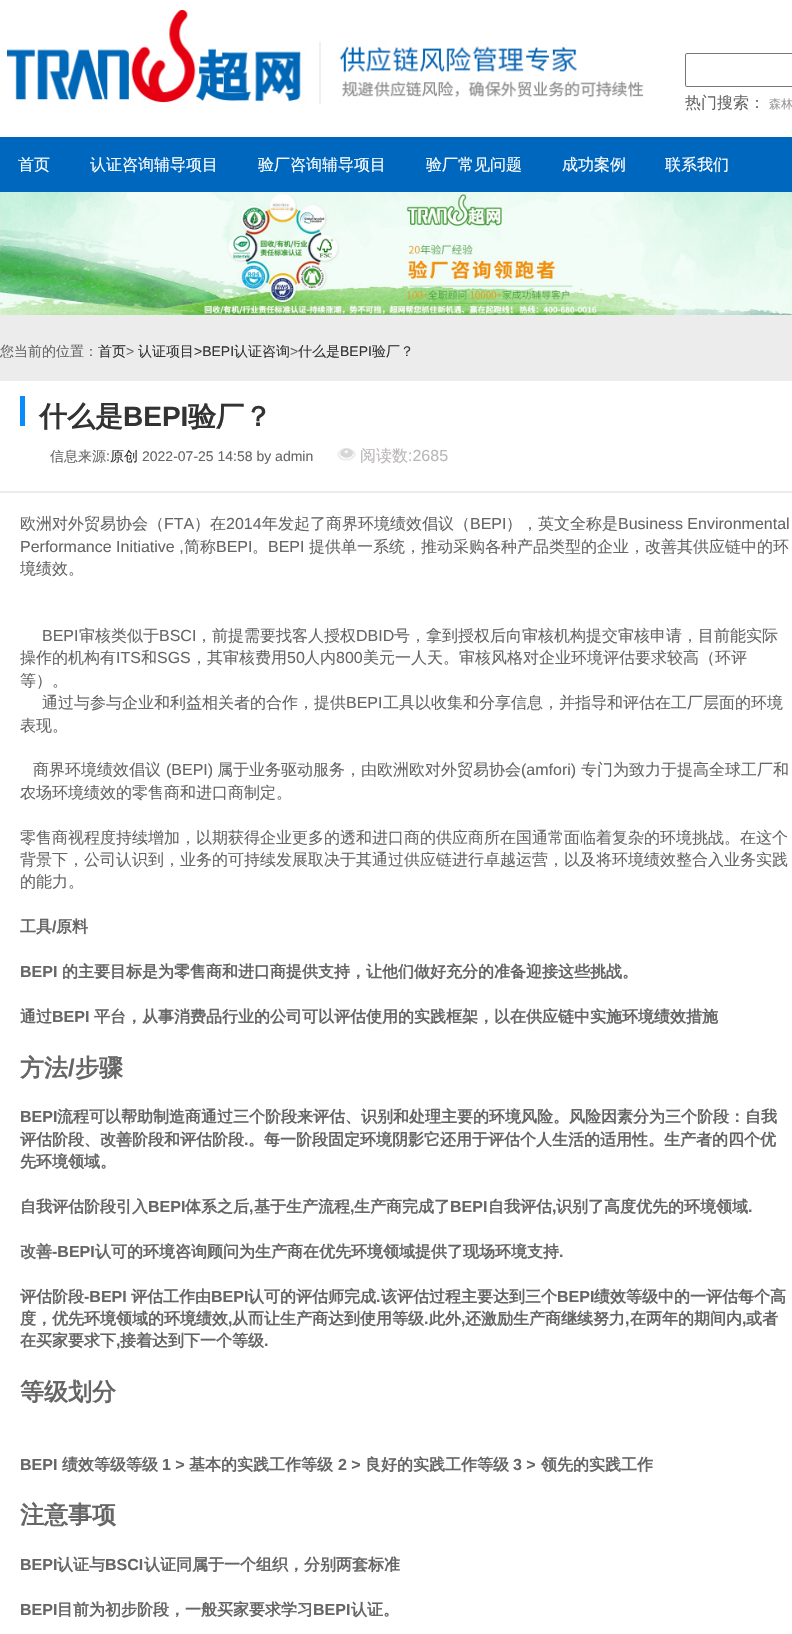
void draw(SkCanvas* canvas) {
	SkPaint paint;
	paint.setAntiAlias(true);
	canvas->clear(0xffffffff);
	canvas->drawImageRect(SkImages::DeferredFromEncodedData(SkData::MakeFromFileName("img1.png")), SkRect::MakeXYWH(7, 10, 637, 94), SkSamplingOptions());
	paint.setStroke(true);
	paint.setStrokeWidth(1);
	paint.setColor(0xff767676);
	canvas->drawRoundRect(SkRect::MakeXYWH(685.5, 53.5, 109, 33), 1.5, 1.5, paint);
	SkFont f1(fontMgr->matchFamilyStyle("WenQuanYi Zen Hei", SkFontStyle(500, SkFontStyle::kNormal_Width, SkFontStyle::kUpright_Slant)), 16);
	f1.setSubpixel(true);
	paint.setStroke(false);
	paint.setColor(0xff666666);
	canvas->drawString("热门搜索：", 685, 108, f1, paint);
	SkFont f2(fontMgr->matchFamilyStyle("WenQuanYi Zen Hei", SkFontStyle(500, SkFontStyle::kNormal_Width, SkFontStyle::kUpright_Slant)), 12);
	f2.setSubpixel(true);
	paint.setColor(0xff999999);
	canvas->drawString("森林", 769, 108, f2, paint);
	paint.setColor(0xff0067be);
	canvas->drawRect(SkRect::MakeXYWH(0, 137, 792, 55), paint);
	paint.setColor(0xffffffff);
	canvas->drawString("首页", 18, 170, f1, paint);
	canvas->drawString("认证咨询辅导项目", 90, 170, f1, paint);
	canvas->drawString("验厂咨询辅导项目", 258, 170, f1, paint);
	canvas->drawString("验厂常见问题", 426, 170, f1, paint);
	canvas->drawString("成功案例", 562, 170, f1, paint);
	canvas->drawString("联系我们", 665, 170, f1, paint);
	paint.setColor(0xffececec);
	canvas->drawRect(SkRect::MakeXYWH(0, 315, 792, 178), paint);
	canvas->drawImageRect(SkImages::DeferredFromEncodedData(SkData::MakeFromFileName("img2.png")), SkRect::MakeXYWH(0, 192, 792, 123), SkSamplingOptions());
	SkFont f3(fontMgr->matchFamilyStyle("WenQuanYi Zen Hei", SkFontStyle(500, SkFontStyle::kNormal_Width, SkFontStyle::kUpright_Slant)), 14);
	f3.setSubpixel(true);
	paint.setColor(0xff666666);
	canvas->drawString("您当前的位置：", 0, 356, f3, paint);
	paint.setColor(0xff333333);
	canvas->drawString("首页", 98, 356, f3, paint);
	SkFont f4(fontMgr->matchFamilyStyle("Liberation Sans", SkFontStyle::Normal()), 14);
	f4.setSubpixel(true);
	paint.setColor(0xff666666);
	canvas->drawString(">", 126, 356, f4, paint);
	paint.setColor(0xff333333);
	canvas->drawString("认证项目", 138, 356, f3, paint);
	canvas->drawString(">BEPI", 194, 356, f4, paint);
	canvas->drawString("认证咨询", 234, 356, f3, paint);
	paint.setColor(0xff666666);
	canvas->drawString(">", 290, 356, f4, paint);
	paint.setColor(0xff333333);
	canvas->drawString("什么是", 298, 356, f3, paint);
	canvas->drawString("BEPI", 340, 356, f4, paint);
	canvas->drawString("验厂？", 372, 356, f3, paint);
	paint.setColor(0xffffffff);
	canvas->drawRect(SkRect::MakeXYWH(0, 381, 792, 110), paint);
	paint.setColor(0xff098bfb);
	canvas->drawRect(SkRect::MakeXYWH(20, 396, 5, 30), paint);
	SkFont f5(fontMgr->matchFamilyStyle("WenQuanYi Zen Hei", SkFontStyle::Bold()), 28);
	f5.setSubpixel(true);
	paint.setColor(0xff333333);
	canvas->drawString("什么是", 39, 426, f5, paint);
	SkFont f6(fontMgr->matchFamilyStyle("Liberation Sans", SkFontStyle::Bold()), 28);
	f6.setSubpixel(true);
	canvas->drawString("BEPI", 123, 426, f6, paint);
	canvas->drawString("验厂？", 188, 426, f5, paint);
	paint.setColor(0xff666666);
	canvas->drawString("信息来源", 50, 461, f3, paint);
	canvas->drawString(":", 106, 461, f4, paint);
	paint.setColor(0xff333333);
	canvas->drawString("原创", 110, 461, f3, paint);
	paint.setColor(0xff666666);
	canvas->drawString("2022-07-25 14:58 by admin", 142, 461, f4, paint);
	canvas->drawImageRect(SkImages::DeferredFromEncodedData(SkData::MakeFromFileName("img3.png")), SkRect::MakeXYWH(337, 448, 19, 13), SkSamplingOptions());
	paint.setColor(0xffbab7b7);
	canvas->drawString("阅读数", 360, 461, f1, paint);
	SkFont f7(fontMgr->matchFamilyStyle("Liberation Sans", SkFontStyle::Normal()), 16);
	f7.setSubpixel(true);
	canvas->drawString(":2685", 408, 461, f7, paint);
	paint.setColor(0xff666666);
	canvas->drawString("欧洲对外贸易协会（", 20, 529, f1, paint);
	canvas->drawString("FTA", 164, 529, f7, paint);
	canvas->drawString("）在", 194, 529, f1, paint);
	canvas->drawString("2014", 226, 529, f7, paint);
	canvas->drawString("年发起了商界环境绩效倡议（", 262, 529, f1, paint);
	canvas->drawString("BEPI", 470, 529, f7, paint);
	canvas->drawString("），英文全称是", 506, 529, f1, paint);
	canvas->drawString("Business Environmental", 618, 529, f7, paint);
	canvas->drawString("Performance Initiative ,", 20, 552, f7, paint);
	canvas->drawString("简称", 184, 552, f1, paint);
	canvas->drawString("BEPI", 216, 552, f7, paint);
	canvas->drawString("。", 252, 552, f1, paint);
	canvas->drawString("BEPI", 268, 552, f7, paint);
	canvas->drawString("提供单一系统，推动采购各种产品类型的企业，改善其供应链中的环", 309, 552, f1, paint);
	canvas->drawString("境绩效。", 20, 574, f1, paint);
	canvas->drawString("BEPI", 42, 641, f7, paint);
	canvas->drawString("审核类似于", 79, 641, f1, paint);
	canvas->drawString("BSCI", 159, 641, f7, paint);
	canvas->drawString("，前提需要找客人授权", 196, 641, f1, paint);
	canvas->drawString("DBID", 356, 641, f7, paint);
	canvas->drawString("号，拿到授权后向审核机构提交审核申请，目前能实际", 394, 641, f1, paint);
	canvas->drawString("操作的机构有", 20, 663, f1, paint);
	canvas->drawString("ITS", 116, 663, f7, paint);
	canvas->drawString("和", 141, 663, f1, paint);
	canvas->drawString("SGS", 157, 663, f7, paint);
	canvas->drawString("，其审核费用", 191, 663, f1, paint);
	canvas->drawString("50", 287, 663, f7, paint);
	canvas->drawString("人内", 304, 663, f1, paint);
	canvas->drawString("800", 336, 663, f7, paint);
	canvas->drawString("美元一人天。审核风格对企业环境评估要求较高（环评", 363, 663, f1, paint);
	canvas->drawString("等）。", 20, 686, f1, paint);
	canvas->drawString("通过与参与企业和利益相关者的合作，提供", 42, 708, f1, paint);
	canvas->drawString("BEPI", 346, 708, f7, paint);
	canvas->drawString("工具以收集和分享信息，并指导和评估在工厂层面的环境", 383, 708, f1, paint);
	canvas->drawString("表现。", 20, 731, f1, paint);
	canvas->drawString("商界环境绩效倡议", 33, 775, f1, paint);
	canvas->drawString("(BEPI)", 166, 775, f7, paint);
	canvas->drawString("属于业务驱动服务，由欧洲欧对外贸易协会", 217, 775, f1, paint);
	canvas->drawString("(amfori)", 521, 775, f7, paint);
	canvas->drawString("专门为致力于提高全球工厂和", 581, 775, f1, paint);
	canvas->drawString("农场环境绩效的零售商和进口商制定。", 20, 798, f1, paint);
	canvas->drawString("零售商视程度持续增加，以期获得企业更多的透和进口商的供应商所在国通常面临着复杂的环境挑战。在这个", 20, 843, f1, paint);
	canvas->drawString("背景下，公司认识到，业务的可持续发展取决于其通过供应链进行卓越运营，以及将环境绩效整合入业务实践", 20, 865, f1, paint);
	canvas->drawString("的能力。", 20, 887, f1, paint);
	SkFont f8(fontMgr->matchFamilyStyle("WenQuanYi Zen Hei", SkFontStyle::Bold()), 16);
	f8.setSubpixel(true);
	canvas->drawString("工具", 20, 932, f8, paint);
	SkFont f9(fontMgr->matchFamilyStyle("Liberation Sans", SkFontStyle::Bold()), 16);
	f9.setSubpixel(true);
	canvas->drawString("/", 52, 932, f9, paint);
	canvas->drawString("原料", 56, 932, f8, paint);
	canvas->drawString("BEPI", 20, 977, f9, paint);
	canvas->drawString("的主要目标是为零售商和进口商提供支持，让他们做好充分的准备迎接这些挑战。", 62, 977, f8, paint);
	canvas->drawString("通过", 20, 1022, f8, paint);
	canvas->drawString("BEPI", 52, 1022, f9, paint);
	canvas->drawString("平台，从事消费品行业的公司可以评估使用的实践框架，以在供应链中实施环境绩效措施", 94, 1022, f8, paint);
	SkFont f10(fontMgr->matchFamilyStyle("WenQuanYi Zen Hei", SkFontStyle::Bold()), 24);
	f10.setSubpixel(true);
	canvas->drawString("方法", 20, 1076, f10, paint);
	SkFont f11(fontMgr->matchFamilyStyle("Liberation Sans", SkFontStyle::Bold()), 24);
	f11.setSubpixel(true);
	canvas->drawString("/", 68, 1076, f11, paint);
	canvas->drawString("步骤", 75, 1076, f10, paint);
	canvas->drawString("BEPI", 20, 1122, f9, paint);
	canvas->drawString("流程可以帮助制造商通过三个阶段来评估、识别和处理主要的环境风险。风险因素分为三个阶段：自我", 57, 1122, f8, paint);
	canvas->drawString("评估阶段、改善阶段和评估阶段", 20, 1145, f8, paint);
	canvas->drawString(".", 244, 1145, f9, paint);
	canvas->drawString("。每一阶段固定环境阴影它还用于评估个人生活的适用性。生产者的四个优", 248, 1145, f8, paint);
	canvas->drawString("先环境领域。", 20, 1167, f8, paint);
	canvas->drawString("自我评估阶段引入", 20, 1212, f8, paint);
	canvas->drawString("BEPI", 148, 1212, f9, paint);
	canvas->drawString("体系之后", 185, 1212, f8, paint);
	canvas->drawString(",", 249, 1212, f9, paint);
	canvas->drawString("基于生产流程", 254, 1212, f8, paint);
	canvas->drawString(",", 350, 1212, f9, paint);
	canvas->drawString("生产商完成了", 354, 1212, f8, paint);
	canvas->drawString("BEPI", 450, 1212, f9, paint);
	canvas->drawString("自我评估", 488, 1212, f8, paint);
	canvas->drawString(",", 552, 1212, f9, paint);
	canvas->drawString("识别了高度优先的环境领域", 556, 1212, f8, paint);
	canvas->drawString(".", 748, 1212, f9, paint);
	canvas->drawString("改善", 20, 1257, f8, paint);
	canvas->drawString("-BEPI", 52, 1257, f9, paint);
	canvas->drawString("认可的环境咨询顾问为生产商在优先环境领域提供了现场环境支持", 95, 1257, f8, paint);
	canvas->drawString(".", 559, 1257, f9, paint);
	canvas->drawString("评估阶段", 20, 1302, f8, paint);
	canvas->drawString("-BEPI", 84, 1302, f9, paint);
	canvas->drawString("评估工作由", 131, 1302, f8, paint);
	canvas->drawString("BEPI", 211, 1302, f9, paint);
	canvas->drawString("认可的评估师完成", 248, 1302, f8, paint);
	canvas->drawString(".", 376, 1302, f9, paint);
	canvas->drawString("该评估过程主要达到三个", 381, 1302, f8, paint);
	canvas->drawString("BEPI", 557, 1302, f9, paint);
	canvas->drawString("绩效等级中的一评估每个高", 594, 1302, f8, paint);
	canvas->drawString("度，优先环境领域的环境绩效", 20, 1324, f8, paint);
	canvas->drawString(",", 228, 1324, f9, paint);
	canvas->drawString("从而让生产商达到使用等级", 232, 1324, f8, paint);
	canvas->drawString(".", 424, 1324, f9, paint);
	canvas->drawString("此外", 429, 1324, f8, paint);
	canvas->drawString(",", 461, 1324, f9, paint);
	canvas->drawString("还激励生产商继续努力", 465, 1324, f8, paint);
	canvas->drawString(",", 625, 1324, f9, paint);
	canvas->drawString("在两年的期间内", 630, 1324, f8, paint);
	canvas->drawString(",", 742, 1324, f9, paint);
	canvas->drawString("或者", 746, 1324, f8, paint);
	canvas->drawString("在买家要求下", 20, 1346, f8, paint);
	canvas->drawString(",", 116, 1346, f9, paint);
	canvas->drawString("接着达到下一个等级", 120, 1346, f8, paint);
	canvas->drawString(".", 264, 1346, f9, paint);
	canvas->drawString("等级划分", 20, 1400, f10, paint);
	canvas->drawString("BEPI", 20, 1470, f9, paint);
	canvas->drawString("绩效等级等级", 62, 1470, f8, paint);
	canvas->drawString("1 >", 162, 1470, f9, paint);
	canvas->drawString("基本的实践工作等级", 189, 1470, f8, paint);
	canvas->drawString("2 >", 338, 1470, f9, paint);
	canvas->drawString("良好的实践工作等级", 365, 1470, f8, paint);
	canvas->drawString("3 >", 513, 1470, f9, paint);
	canvas->drawString("领先的实践工作", 541, 1470, f8, paint);
	canvas->drawString("注意事项", 20, 1523, f10, paint);
	canvas->drawString("BEPI", 20, 1570, f9, paint);
	canvas->drawString("认证与", 57, 1570, f8, paint);
	canvas->drawString("BSCI", 105, 1570, f9, paint);
	canvas->drawString("认证同属于一个组织，分别两套标准", 144, 1570, f8, paint);
	canvas->drawString("BEPI", 20, 1615, f9, paint);
	canvas->drawString("目前为初步阶段，一般买家要求学习", 57, 1615, f8, paint);
	canvas->drawString("BEPI", 313, 1615, f9, paint);
	canvas->drawString("认证。", 351, 1615, f8, paint);
}
